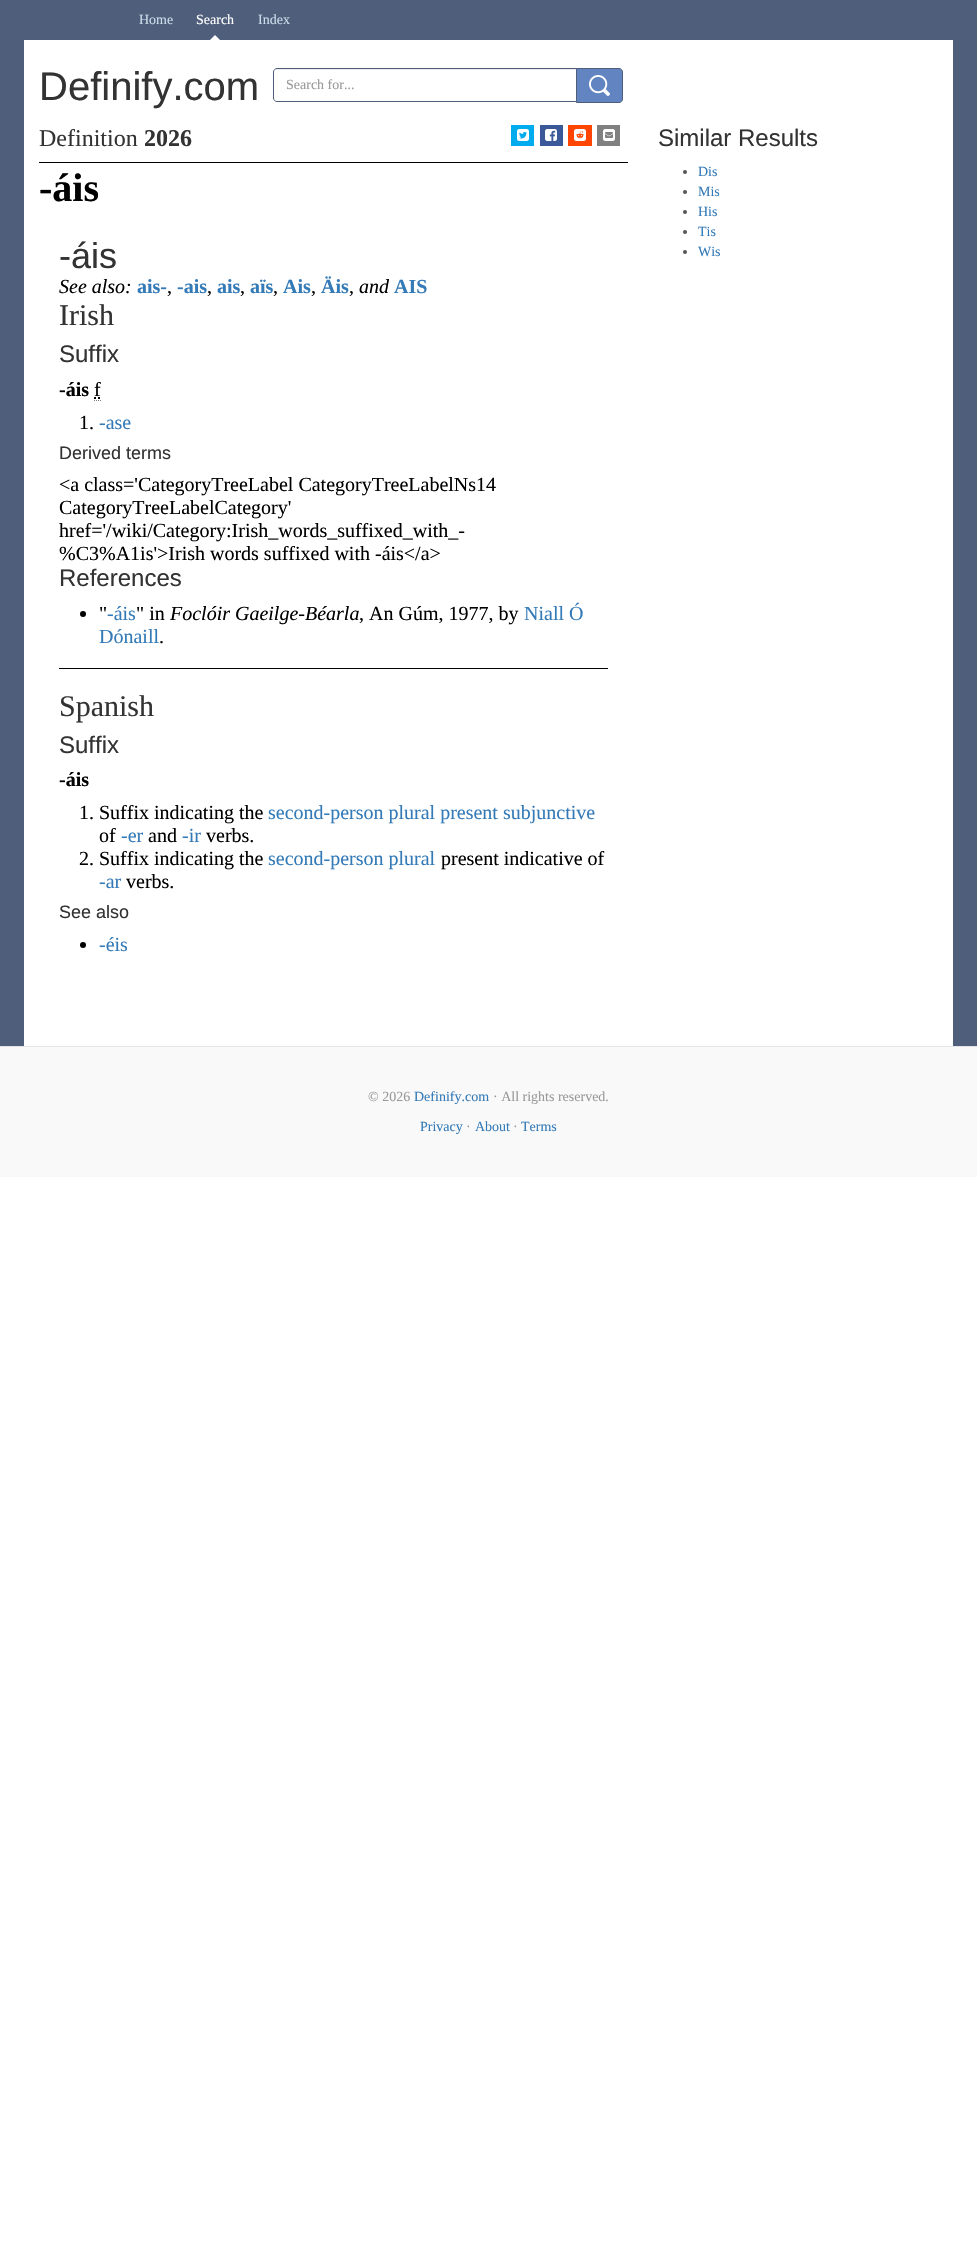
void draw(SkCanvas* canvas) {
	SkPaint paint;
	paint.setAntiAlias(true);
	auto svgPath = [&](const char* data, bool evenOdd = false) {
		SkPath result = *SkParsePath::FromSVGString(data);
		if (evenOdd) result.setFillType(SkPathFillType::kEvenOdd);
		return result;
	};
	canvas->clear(0xffffffff);
	paint.setColor(0xff4f5f7b);
	canvas->drawRect(SkRect::MakeXYWH(0, 0, 977, 1046), paint);
	SkFont f1(fontMgr->matchFamilyStyle("Liberation Serif", SkFontStyle::Normal()), 14);
	f1.setSubpixel(true);
	paint.setColor(0xffcdddeb);
	canvas->drawString("Home", 139, 24, f1, paint);
	paint.setColor(0xffffffff);
	canvas->drawString("Search", 196, 24, f1, paint);
	canvas->drawPath(svgPath("M220 40H210L215 35Z"), paint);
	paint.setColor(0xffcdddeb);
	canvas->drawString("Index", 258, 24, f1, paint);
	paint.setColor(0xffffffff);
	canvas->drawRect(SkRect::MakeXYWH(24, 40, 929, 1006), paint);
	SkFont f2(fontMgr->matchFamilyStyle("Liberation Sans", SkFontStyle::Normal()), 40);
	f2.setSubpixel(true);
	paint.setColor(0xff333333);
	canvas->drawString("Definify.com", 39, 100, f2, paint);
	paint.setColor(0xffececec);
	canvas->drawPath(svgPath("M277 70H576V69H277C275 69 274 71 274 73C274 71 275 70 277 70Z"), paint);
	paint.setStroke(true);
	paint.setStrokeWidth(1);
	paint.setColor(0xff4f5f7b);
	canvas->drawPath(svgPath("M277 68.5H576.5V101.5H277C275 101.5 273.5 100 273.5 98V72C273.5 70 275 68.5 277 68.5Z"), paint);
	paint.setStroke(false);
	paint.setColor(0xff999999);
	canvas->drawString("Search for...", 286, 89, f1, paint);
	paint.setColor(0xff6285c1);
	canvas->drawPath(svgPath("M576.5 68.5H619C621 68.5 622.5 70 622.5 72V99C622.5 101 621 102.5 619 102.5H576.5Z"), paint);
	paint.setStroke(true);
	paint.setColor(0xff4f5f7b);
	canvas->drawPath(svgPath("M576.5 68.5H619C621 68.5 622.5 70 622.5 72V99C622.5 101 621 102.5 619 102.5H576.5Z"), paint);
	canvas->drawImageRect(SkImages::DeferredFromEncodedData(SkData::MakeFromFileName("img1.png")), SkRect::MakeXYWH(589, 75, 21, 21), SkSamplingOptions());
	SkFont f3(fontMgr->matchFamilyStyle("Liberation Serif", SkFontStyle::Normal()), 24);
	f3.setSubpixel(true);
	paint.setStroke(false);
	paint.setColor(0xff333333);
	canvas->drawString("Definition", 39, 146, f3, paint);
	SkFont f4(fontMgr->matchFamilyStyle("Liberation Serif", SkFontStyle::Bold()), 24);
	f4.setSubpixel(true);
	canvas->drawString("2026", 144, 146, f4, paint);
	paint.setColor(0xff00aced);
	canvas->drawRect(SkRect::MakeXYWH(511, 125, 23, 21), paint);
	canvas->drawImageRect(SkImages::DeferredFromEncodedData(SkData::MakeFromFileName("img2.png")), SkRect::MakeXYWH(517, 129, 12, 12), SkSamplingOptions());
	paint.setColor(0xff3b5998);
	canvas->drawRect(SkRect::MakeXYWH(540, 125, 23, 21), paint);
	canvas->drawImageRect(SkImages::DeferredFromEncodedData(SkData::MakeFromFileName("img3.png")), SkRect::MakeXYWH(545, 129, 12, 12), SkSamplingOptions());
	paint.setColor(0xffff4500);
	canvas->drawRect(SkRect::MakeXYWH(568, 125, 24, 21), paint);
	canvas->drawImageRect(SkImages::DeferredFromEncodedData(SkData::MakeFromFileName("img4.png")), SkRect::MakeXYWH(574, 129, 12, 12), SkSamplingOptions());
	paint.setColor(0xff808080);
	canvas->drawRect(SkRect::MakeXYWH(597, 125, 23, 21), paint);
	canvas->drawImageRect(SkImages::DeferredFromEncodedData(SkData::MakeFromFileName("img5.png")), SkRect::MakeXYWH(603, 129, 12, 12), SkSamplingOptions());
	paint.setColor(0xff000000);
	canvas->drawRect(SkRect::MakeXYWH(39, 162, 589, 1), paint);
	SkFont f5(fontMgr->matchFamilyStyle("Liberation Serif", SkFontStyle::Bold()), 40);
	f5.setSubpixel(true);
	canvas->drawString("-áis", 39, 201, f5, paint);
	SkFont f6(fontMgr->matchFamilyStyle("Liberation Sans", SkFontStyle::Normal()), 36);
	f6.setSubpixel(true);
	paint.setColor(0xff333333);
	canvas->drawString("-áis", 59, 268, f6, paint);
	SkFont f7(fontMgr->matchFamilyStyle("Liberation Serif", SkFontStyle::Italic()), 20);
	f7.setSubpixel(true);
	paint.setColor(0xff000000);
	canvas->drawString("See also:", 59, 293, f7, paint);
	SkFont f8(fontMgr->matchFamilyStyle("Liberation Serif", SkFontStyle::Bold()), 20);
	f8.setSubpixel(true);
	paint.setColor(0xff337ab7);
	canvas->drawString("ais-", 137, 293, f8, paint);
	SkFont f9(fontMgr->matchFamilyStyle("Liberation Serif", SkFontStyle::Normal()), 20);
	f9.setSubpixel(true);
	paint.setColor(0xff000000);
	canvas->drawString(",", 167, 293, f9, paint);
	paint.setColor(0xff337ab7);
	canvas->drawString("-ais", 177, 293, f8, paint);
	paint.setColor(0xff000000);
	canvas->drawString(",", 207, 293, f9, paint);
	paint.setColor(0xff337ab7);
	canvas->drawString("ais", 217, 293, f8, paint);
	paint.setColor(0xff000000);
	canvas->drawString(",", 240, 293, f9, paint);
	paint.setColor(0xff337ab7);
	canvas->drawString("aïs", 250, 293, f8, paint);
	paint.setColor(0xff000000);
	canvas->drawString(",", 273, 293, f9, paint);
	paint.setColor(0xff337ab7);
	canvas->drawString("Ais", 283, 293, f8, paint);
	paint.setColor(0xff000000);
	canvas->drawString(",", 311, 293, f9, paint);
	paint.setColor(0xff337ab7);
	canvas->drawString("Äis", 321, 293, f8, paint);
	paint.setColor(0xff000000);
	canvas->drawString(",", 349, 293, f9, paint);
	canvas->drawString("and", 359, 293, f7, paint);
	paint.setColor(0xff337ab7);
	canvas->drawString("AIS", 394, 293, f8, paint);
	SkFont f10(fontMgr->matchFamilyStyle("Liberation Serif", SkFontStyle::Normal()), 30);
	f10.setSubpixel(true);
	paint.setColor(0xff333333);
	canvas->drawString("Irish", 59, 325, f10, paint);
	SkFont f11(fontMgr->matchFamilyStyle("Liberation Sans", SkFontStyle::Normal()), 24);
	f11.setSubpixel(true);
	canvas->drawString("Suffix", 59, 362, f11, paint);
	paint.setColor(0xff000000);
	canvas->drawString("-áis", 59, 396, f8, paint);
	canvas->drawString("f", 94, 396, f9, paint);
	paint.setStroke(true);
	paint.setColor(0xff777777);
	canvas->drawPath(svgPath("M94 400.5H95M96 400.5H97M98 400.5H99M100 400.5H101"), paint);
	paint.setStrokeWidth(2);
	paint.setColor(0xff000000);
	canvas->drawPath(svgPath("M94 398H96M98 398H100"), paint);
	paint.setStroke(false);
	canvas->drawString("1.", 79, 429, f9, paint);
	paint.setColor(0xff337ab7);
	canvas->drawString("-ase", 99, 429, f9, paint);
	SkFont f12(fontMgr->matchFamilyStyle("Liberation Sans", SkFontStyle::Normal()), 18);
	f12.setSubpixel(true);
	paint.setColor(0xff333333);
	canvas->drawString("Derived terms", 59, 459, f12, paint);
	paint.setColor(0xff000000);
	canvas->drawString("<a class='CategoryTreeLabel CategoryTreeLabelNs14", 59, 491, f9, paint);
	canvas->drawString("CategoryTreeLabelCategory'", 59, 514, f9, paint);
	canvas->drawString("href='/wiki/Category:Irish_words_suffixed_with_-", 59, 537, f9, paint);
	canvas->drawString("%C3%A1is'>Irish words suffixed with -áis</a>", 59, 560, f9, paint);
	paint.setColor(0xff333333);
	canvas->drawString("References", 59, 586, f11, paint);
	paint.setColor(0xff000000);
	canvas->drawCircle(83, 614, 3, paint);
	canvas->drawString("\"", 99, 620, f9, paint);
	paint.setColor(0xff337ab7);
	canvas->drawString("-áis", 107, 620, f9, paint);
	paint.setColor(0xff000000);
	canvas->drawString("\" in", 136, 620, f9, paint);
	canvas->drawString("Foclóir Gaeilge-Béarla", 170, 620, f7, paint);
	canvas->drawString(", An Gúm, 1977, by", 359, 620, f9, paint);
	paint.setColor(0xff337ab7);
	canvas->drawString("Niall Ó", 524, 620, f9, paint);
	canvas->drawString("Dónaill", 99, 643, f9, paint);
	paint.setColor(0xff000000);
	canvas->drawString(".", 159, 643, f9, paint);
	canvas->drawRect(SkRect::MakeXYWH(59, 668, 549, 1), paint);
	paint.setColor(0xff333333);
	canvas->drawString("Spanish", 59, 716, f10, paint);
	canvas->drawString("Suffix", 59, 753, f11, paint);
	paint.setColor(0xff000000);
	canvas->drawString("-áis", 59, 786, f8, paint);
	canvas->drawString("1. Suffix indicating the", 79, 819, f9, paint);
	paint.setColor(0xff337ab7);
	canvas->drawString("second-person plural present subjunctive", 268, 819, f9, paint);
	paint.setColor(0xff000000);
	canvas->drawString("of", 99, 842, f9, paint);
	paint.setColor(0xff337ab7);
	canvas->drawString("-er", 121, 842, f9, paint);
	paint.setColor(0xff000000);
	canvas->drawString("and", 148, 842, f9, paint);
	paint.setColor(0xff337ab7);
	canvas->drawString("-ir", 182, 842, f9, paint);
	paint.setColor(0xff000000);
	canvas->drawString("verbs.", 206, 842, f9, paint);
	canvas->drawString("2. Suffix indicating the", 79, 865, f9, paint);
	paint.setColor(0xff337ab7);
	canvas->drawString("second-person plural", 268, 865, f9, paint);
	paint.setColor(0xff000000);
	canvas->drawString("present indicative of", 441, 865, f9, paint);
	paint.setColor(0xff337ab7);
	canvas->drawString("-ar", 99, 888, f9, paint);
	paint.setColor(0xff000000);
	canvas->drawString("verbs.", 126, 888, f9, paint);
	paint.setColor(0xff333333);
	canvas->drawString("See also", 59, 918, f12, paint);
	paint.setColor(0xff000000);
	canvas->drawCircle(83, 945, 3, paint);
	paint.setColor(0xff337ab7);
	canvas->drawString("-éis", 99, 951, f9, paint);
	paint.setColor(0xff333333);
	canvas->drawString("Similar Results", 658, 146, f11, paint);
	paint.setColor(0xff555555);
	canvas->drawCircle(685, 172, 2, paint);
	paint.setColor(0xff337ab7);
	canvas->drawString("Dis", 698, 176, f1, paint);
	paint.setColor(0xff555555);
	canvas->drawCircle(685, 192, 2, paint);
	paint.setColor(0xff337ab7);
	canvas->drawString("Mis", 698, 196, f1, paint);
	paint.setColor(0xff555555);
	canvas->drawCircle(685, 212, 2, paint);
	paint.setColor(0xff337ab7);
	canvas->drawString("His", 698, 216, f1, paint);
	paint.setColor(0xff555555);
	canvas->drawCircle(685, 232, 2, paint);
	paint.setColor(0xff337ab7);
	canvas->drawString("Tis", 698, 236, f1, paint);
	paint.setColor(0xff555555);
	canvas->drawCircle(685, 252, 2, paint);
	paint.setColor(0xff337ab7);
	canvas->drawString("Wis", 698, 256, f1, paint);
	paint.setColor(0xfff9f9f9);
	canvas->drawRect(SkRect::MakeXYWH(0, 1047, 977, 130), paint);
	paint.setColor(0xffe5e5e5);
	canvas->drawRect(SkRect::MakeXYWH(0, 1046, 977, 1), paint);
	paint.setColor(0xff999999);
	canvas->drawString("© 2026", 368, 1101, f1, paint);
	paint.setColor(0xff337ab7);
	canvas->drawString("Definify.com", 414, 1101, f1, paint);
	paint.setColor(0xff999999);
	canvas->drawString("· All rights reserved.", 493, 1101, f1, paint);
	paint.setColor(0xff337ab7);
	canvas->drawString("Privacy", 420, 1131, f1, paint);
	paint.setColor(0xff999999);
	canvas->drawString("·", 466, 1131, f1, paint);
	paint.setColor(0xff337ab7);
	canvas->drawString("About", 475, 1131, f1, paint);
	paint.setColor(0xff999999);
	canvas->drawString("·", 513, 1131, f1, paint);
	paint.setColor(0xff337ab7);
	canvas->drawString("Terms", 521, 1131, f1, paint);
}
